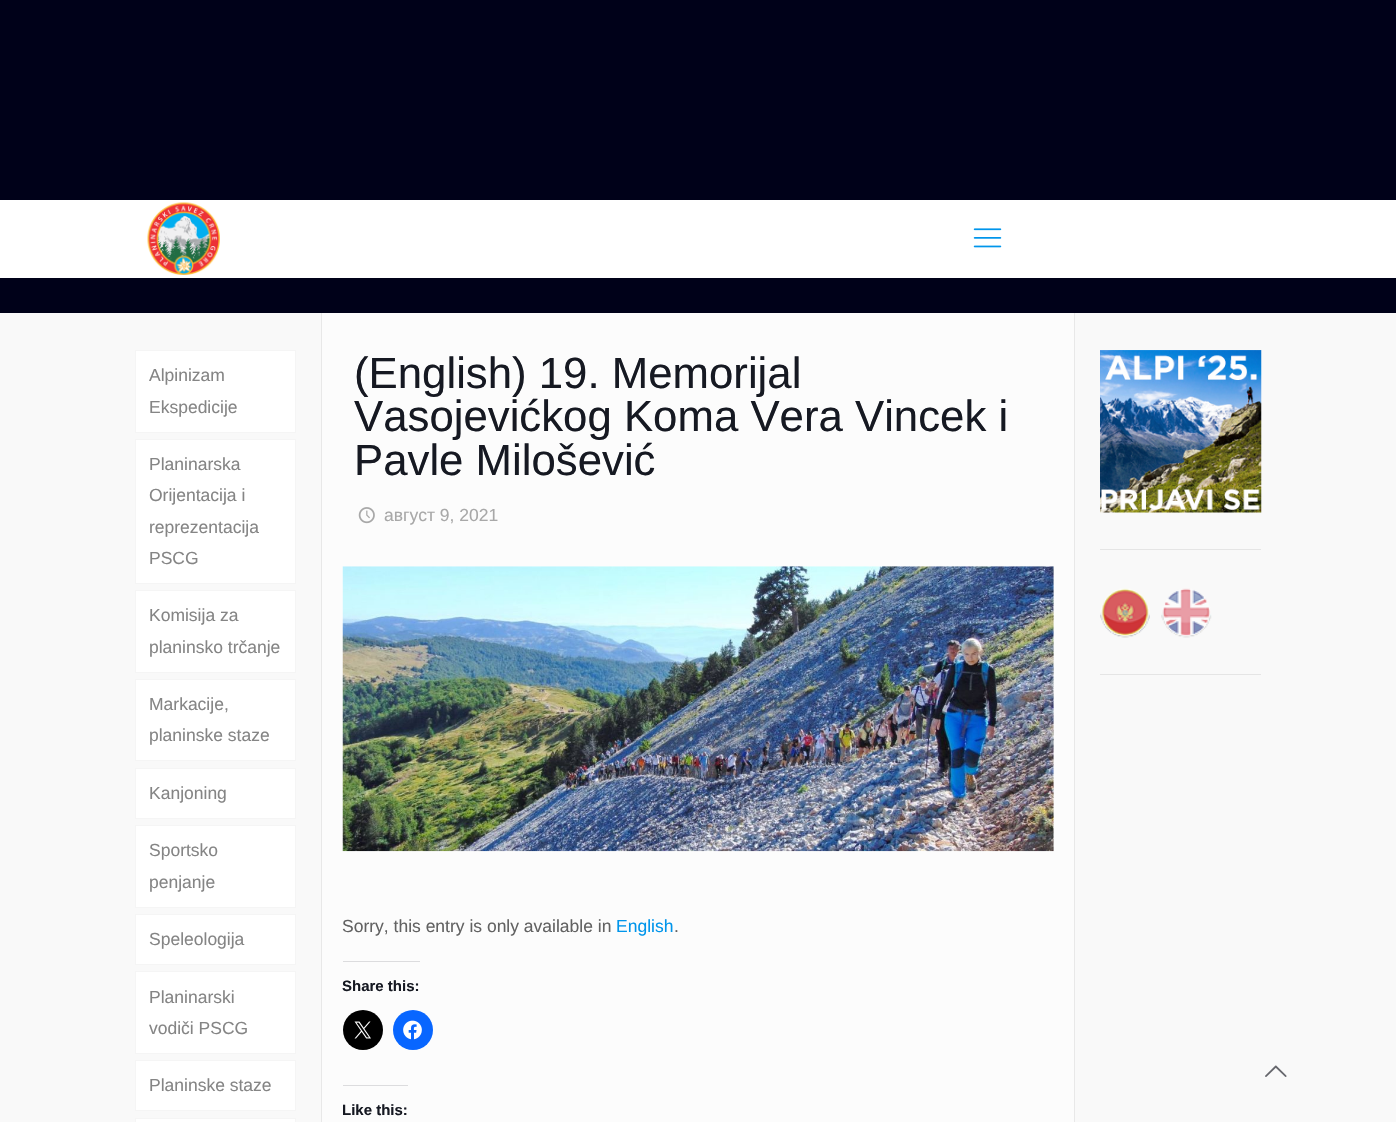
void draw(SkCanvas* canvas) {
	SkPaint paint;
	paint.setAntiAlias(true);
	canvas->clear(0xfffcfcfc);
	paint.setColor(0xff000119);
	canvas->drawRect(SkRect::MakeXYWH(0, 0, 1396, 313), paint);
	paint.setColor(0xffffffff);
	canvas->drawRect(SkRect::MakeXYWH(0, 200, 1396, 78), paint);
	canvas->drawImageRect(SkImages::DeferredFromEncodedData(SkData::MakeFromFileName("img1.png")), SkRect::MakeXYWH(147, 202, 73, 73), SkSamplingOptions());
	canvas->drawImageRect(SkImages::DeferredFromEncodedData(SkData::MakeFromFileName("img2.png")), SkRect::MakeXYWH(973, 228, 29, 20), SkSamplingOptions());
	paint.setColor(0xffe8e8e8);
	canvas->drawRect(SkRect::MakeXYWH(321, 313, 1, 809), paint);
	paint.setColor(0xfff9f9f9);
	canvas->drawRect(SkRect::MakeXYWH(0, 313, 321, 809), paint);
	paint.setColor(0xffffffff);
	canvas->drawRect(SkRect::MakeXYWH(135.5, 350.5, 160, 82), paint);
	paint.setStroke(true);
	paint.setStrokeWidth(1);
	paint.setColor(0xfff5f5f5);
	canvas->drawRect(SkRect::MakeXYWH(135.5, 350.5, 160, 82), paint);
	SkFont f1(fontMgr->matchFamilyStyle("Liberation Sans", SkFontStyle::Normal()), 17.5);
	f1.setSubpixel(true);
	paint.setStroke(false);
	paint.setColor(0xff858585);
	canvas->drawString("Alpinizam", 149, 381, f1, paint);
	canvas->drawString("Ekspedicije", 149, 413, f1, paint);
	paint.setColor(0xffffffff);
	canvas->drawRect(SkRect::MakeXYWH(135.5, 439.5, 160, 144), paint);
	paint.setStroke(true);
	paint.setColor(0xfff5f5f5);
	canvas->drawRect(SkRect::MakeXYWH(135.5, 439.5, 160, 144), paint);
	paint.setStroke(false);
	paint.setColor(0xff858585);
	canvas->drawString("Planinarska", 149, 470, f1, paint);
	canvas->drawString("Orijentacija i", 149, 501, f1, paint);
	canvas->drawString("reprezentacija", 149, 533, f1, paint);
	canvas->drawString("PSCG", 149, 564, f1, paint);
	paint.setColor(0xffffffff);
	canvas->drawRect(SkRect::MakeXYWH(135.5, 590.5, 160, 82), paint);
	paint.setStroke(true);
	paint.setColor(0xfff5f5f5);
	canvas->drawRect(SkRect::MakeXYWH(135.5, 590.5, 160, 82), paint);
	paint.setStroke(false);
	paint.setColor(0xff858585);
	canvas->drawString("Komisija za", 149, 621, f1, paint);
	canvas->drawString("planinsko trčanje", 149, 653, f1, paint);
	paint.setColor(0xffffffff);
	canvas->drawRect(SkRect::MakeXYWH(135.5, 679.5, 160, 81), paint);
	paint.setStroke(true);
	paint.setColor(0xfff5f5f5);
	canvas->drawRect(SkRect::MakeXYWH(135.5, 679.5, 160, 81), paint);
	paint.setStroke(false);
	paint.setColor(0xff858585);
	canvas->drawString("Markacije,", 149, 710, f1, paint);
	canvas->drawString("planinske staze", 149, 741, f1, paint);
	paint.setColor(0xffffffff);
	canvas->drawRect(SkRect::MakeXYWH(135.5, 768.5, 160, 50), paint);
	paint.setStroke(true);
	paint.setColor(0xfff5f5f5);
	canvas->drawRect(SkRect::MakeXYWH(135.5, 768.5, 160, 50), paint);
	paint.setStroke(false);
	paint.setColor(0xff858585);
	canvas->drawString("Kanjoning", 149, 799, f1, paint);
	paint.setColor(0xffffffff);
	canvas->drawRect(SkRect::MakeXYWH(135.5, 825.5, 160, 82), paint);
	paint.setStroke(true);
	paint.setColor(0xfff5f5f5);
	canvas->drawRect(SkRect::MakeXYWH(135.5, 825.5, 160, 82), paint);
	paint.setStroke(false);
	paint.setColor(0xff858585);
	canvas->drawString("Sportsko", 149, 856, f1, paint);
	canvas->drawString("penjanje", 149, 888, f1, paint);
	paint.setColor(0xffffffff);
	canvas->drawRect(SkRect::MakeXYWH(135.5, 914.5, 160, 50), paint);
	paint.setStroke(true);
	paint.setColor(0xfff5f5f5);
	canvas->drawRect(SkRect::MakeXYWH(135.5, 914.5, 160, 50), paint);
	paint.setStroke(false);
	paint.setColor(0xff858585);
	canvas->drawString("Speleologija", 149, 945, f1, paint);
	paint.setColor(0xffffffff);
	canvas->drawRect(SkRect::MakeXYWH(135.5, 971.5, 160, 82), paint);
	paint.setStroke(true);
	paint.setColor(0xfff5f5f5);
	canvas->drawRect(SkRect::MakeXYWH(135.5, 971.5, 160, 82), paint);
	paint.setStroke(false);
	paint.setColor(0xff858585);
	canvas->drawString("Planinarski", 149, 1003, f1, paint);
	canvas->drawString("vodiči PSCG", 149, 1034, f1, paint);
	paint.setColor(0xffffffff);
	canvas->drawRect(SkRect::MakeXYWH(135.5, 1060.5, 160, 50), paint);
	paint.setStroke(true);
	paint.setColor(0xfff5f5f5);
	canvas->drawRect(SkRect::MakeXYWH(135.5, 1060.5, 160, 50), paint);
	paint.setStroke(false);
	paint.setColor(0xff858585);
	canvas->drawString("Planinske staze", 149, 1091, f1, paint);
	paint.setColor(0xffffffff);
	canvas->drawRect(SkRect::MakeXYWH(135.5, 1118.5, 160, 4), paint);
	paint.setStroke(true);
	paint.setColor(0xfff5f5f5);
	canvas->drawRect(SkRect::MakeXYWH(135.5, 1118.5, 160, 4), paint);
	SkFont f2(fontMgr->matchFamilyStyle("Liberation Sans", SkFontStyle::Normal()), 43.75);
	f2.setSubpixel(true);
	paint.setStroke(false);
	paint.setColor(0xff161922);
	canvas->drawString("(English) 19. Memorijal", 354, 388, f2, paint);
	canvas->drawString("Vasojevićkog Koma Vera Vincek i", 354, 431, f2, paint);
	canvas->drawString("Pavle Milošević", 354, 475, f2, paint);
	canvas->drawImageRect(SkImages::DeferredFromEncodedData(SkData::MakeFromFileName("img3.png")), SkRect::MakeXYWH(358, 507, 17, 17), SkSamplingOptions());
	paint.setColor(0xffa8a8a8);
	canvas->drawString("август 9, 2021", 384, 521, f1, paint);
	canvas->drawImageRect(SkImages::DeferredFromEncodedData(SkData::MakeFromFileName("img4.png")), SkRect::MakeXYWH(342, 566, 712, 286), SkSamplingOptions());
	paint.setColor(0xff626262);
	canvas->drawString("Sorry, this entry is only available in", 342, 932, f1, paint);
	paint.setColor(0xff0095eb);
	canvas->drawString("English", 616, 932, f1, paint);
	paint.setColor(0xff626262);
	canvas->drawString(".", 674, 932, f1, paint);
	paint.setColor(0xffdcdcde);
	canvas->drawRect(SkRect::MakeXYWH(343, 961, 77, 1), paint);
	SkFont f3(fontMgr->matchFamilyStyle("Liberation Sans", SkFontStyle::Bold()), 15);
	f3.setSubpixel(true);
	paint.setColor(0xff161922);
	canvas->drawString("Share this:", 342, 991, f3, paint);
	paint.setColor(0xff000000);
	canvas->drawCircle(363, 1030, 20, paint);
	canvas->drawImageRect(SkImages::DeferredFromEncodedData(SkData::MakeFromFileName("img5.png")), SkRect::MakeXYWH(354, 1021, 17, 18), SkSamplingOptions());
	paint.setColor(0xff0866ff);
	canvas->drawCircle(413, 1030, 20, paint);
	canvas->drawImageRect(SkImages::DeferredFromEncodedData(SkData::MakeFromFileName("img6.png")), SkRect::MakeXYWH(403, 1020, 19, 20), SkSamplingOptions());
	paint.setColor(0xffdcdcde);
	canvas->drawRect(SkRect::MakeXYWH(343, 1085, 65, 1), paint);
	paint.setColor(0xff161922);
	canvas->drawString("Like this:", 342, 1115, f3, paint);
	paint.setColor(0xffe8e8e8);
	canvas->drawRect(SkRect::MakeXYWH(1074, 313, 1, 809), paint);
	paint.setColor(0xfff9f9f9);
	canvas->drawRect(SkRect::MakeXYWH(1075, 313, 321, 809), paint);
	canvas->drawImageRect(SkImages::DeferredFromEncodedData(SkData::MakeFromFileName("img7.png")), SkRect::MakeXYWH(1100, 350, 162, 163), SkSamplingOptions());
	paint.setColor(0xffe5e5e5);
	canvas->drawRect(SkRect::MakeXYWH(1100, 549, 161, 1), paint);
	canvas->drawImageRect(SkImages::DeferredFromEncodedData(SkData::MakeFromFileName("img8.png")), SkRect::MakeXYWH(1100, 588, 50, 50), SkSamplingOptions());
	canvas->drawImageRect(SkImages::DeferredFromEncodedData(SkData::MakeFromFileName("img9.png")), SkRect::MakeXYWH(1161, 588, 51, 50), SkSamplingOptions());
	canvas->drawRect(SkRect::MakeXYWH(1100, 674, 161, 1), paint);
	canvas->drawImageRect(SkImages::DeferredFromEncodedData(SkData::MakeFromFileName("img10.png")), SkRect::MakeXYWH(1265, 1065, 22, 12), SkSamplingOptions());
}
